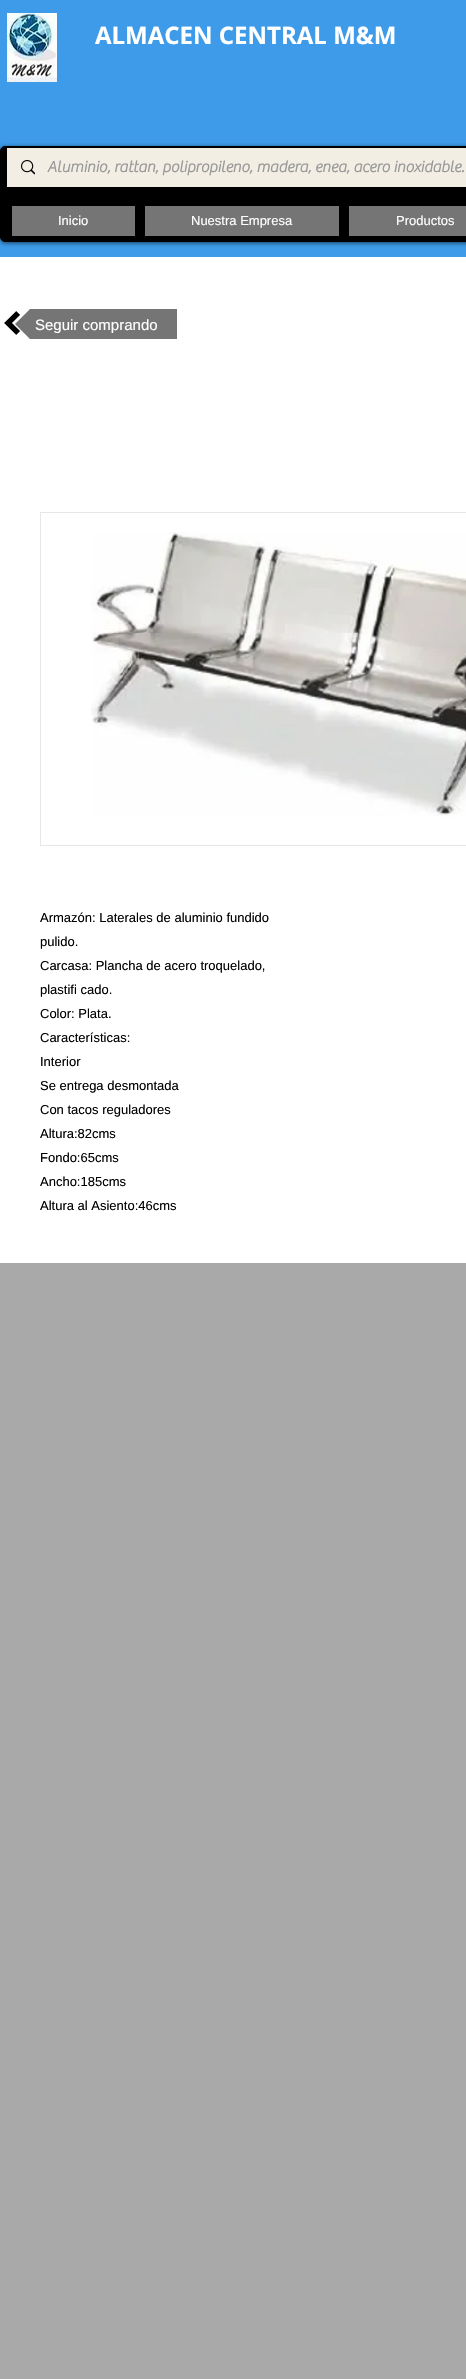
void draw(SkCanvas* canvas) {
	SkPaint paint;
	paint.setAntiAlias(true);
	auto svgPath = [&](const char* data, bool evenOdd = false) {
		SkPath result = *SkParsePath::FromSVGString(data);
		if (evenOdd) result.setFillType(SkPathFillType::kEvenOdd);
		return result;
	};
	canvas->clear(0xffa9a9a9);
	paint.setColor(0xff3d9be9);
	canvas->drawRect(SkRect::MakeXYWH(0, 0, 466, 257), paint);
	canvas->drawImageRect(SkImages::DeferredFromEncodedData(SkData::MakeFromFileName("img1.png")), SkRect::MakeXYWH(7, 13, 50, 69), SkSamplingOptions());
	SkFont f1(fontMgr->matchFamilyStyle("Open Sans", SkFontStyle::Bold()), 24);
	f1.setSubpixel(true);
	paint.setColor(0xffffffff);
	canvas->drawString("ALMACEN CENTRAL M&M", 95, 44, f1, paint);
	paint.setColor(0x99000000);
	paint.setMaskFilter(SkMaskFilter::MakeBlur(kNormal_SkBlurStyle, 2));
	canvas->drawRoundRect(SkRect::MakeXYWH(0, 147, 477, 96), 5, 5, paint);
	paint.setMaskFilter(nullptr);
	paint.setColor(0xff000000);
	canvas->drawRoundRect(SkRect::MakeXYWH(0.5, 146.5, 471, 95), 4.5, 4.5, paint);
	paint.setStroke(true);
	paint.setStrokeWidth(1);
	canvas->drawRoundRect(SkRect::MakeXYWH(0.5, 146.5, 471, 95), 4.5, 4.5, paint);
	paint.setStroke(false);
	paint.setColor(0xfff2eee4);
	canvas->drawRect(SkRect::MakeXYWH(7, 148, 459, 39), paint);
	canvas->drawImageRect(SkImages::DeferredFromEncodedData(SkData::MakeFromFileName("img2.png")), SkRect::MakeXYWH(21, 160, 14, 15), SkSamplingOptions());
	SkFont f2(fontMgr->matchFamilyStyle("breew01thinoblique", SkFontStyle::Bold()), 16);
	f2.setSubpixel(true);
	paint.setColor(0xff999999);
	canvas->drawString("Aluminio, rattan, polipropileno, madera, enea, acero inoxidable…", 47, 172, f2, paint);
	paint.setColor(0xff757575);
	canvas->drawRect(SkRect::MakeXYWH(12, 206, 123, 30), paint);
	SkFont f3(fontMgr->matchFamilyStyle("Liberation Sans", SkFontStyle::Normal()), 13);
	f3.setSubpixel(true);
	paint.setColor(0xffffffff);
	canvas->drawString("Inicio", 58, 225, f3, paint);
	paint.setColor(0xff757575);
	canvas->drawRect(SkRect::MakeXYWH(145, 206, 194, 30), paint);
	paint.setColor(0xffffffff);
	canvas->drawString("Nuestra Empresa", 191, 225, f3, paint);
	paint.setColor(0xff757575);
	canvas->drawRect(SkRect::MakeXYWH(349, 206, 117, 30), paint);
	paint.setColor(0xffffffff);
	canvas->drawString("Productos", 396, 225, f3, paint);
	canvas->drawRect(SkRect::MakeXYWH(0, 257, 466, 1006), paint);
	canvas->save();
	canvas->clipRect(SkRect::MakeXYWH(15, 309, 162, 30));
	paint.setColor(0xff757575);
	canvas->drawPath(svgPath("M65 324H15L65 274ZM15 324H65V374Z"), paint);
	canvas->restore();
	canvas->drawImageRect(SkImages::DeferredFromEncodedData(SkData::MakeFromFileName("img3.png")), SkRect::MakeXYWH(4, 311, 16, 24), SkSamplingOptions());
	canvas->drawRect(SkRect::MakeXYWH(65, 309, 112, 30), paint);
	SkFont f4(fontMgr->matchFamilyStyle("Liberation Sans", SkFontStyle::Normal()), 15);
	f4.setSubpixel(true);
	paint.setColor(0xffffffff);
	canvas->drawString("Seguir comprando", 35, 330, f4, paint);
	paint.setStroke(true);
	paint.setColor(0xffe8e6e6);
	canvas->drawRect(SkRect::MakeXYWH(40.5, 512.5, 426, 333), paint);
	canvas->drawImageRect(SkImages::DeferredFromEncodedData(SkData::MakeFromFileName("img4.png")), SkRect::MakeXYWH(91, 532, 375, 285), SkSamplingOptions());
	paint.setStroke(false);
	paint.setColor(0xff000000);
	canvas->drawString("Armazón: Laterales de aluminio fundido", 40, 922, f3, paint);
	canvas->drawString("pulido.", 40, 946, f3, paint);
	canvas->drawString("Carcasa: Plancha de acero troquelado,", 40, 970, f3, paint);
	canvas->drawString("plastifi cado.", 40, 994, f3, paint);
	canvas->drawString("Color: Plata.", 40, 1018, f3, paint);
	canvas->drawString("Características:", 40, 1042, f3, paint);
	canvas->drawString("Interior", 40, 1066, f3, paint);
	canvas->drawString("Se entrega desmontada", 40, 1090, f3, paint);
	canvas->drawString("Con tacos reguladores", 40, 1114, f3, paint);
	canvas->drawString("Altura:82cms", 40, 1138, f3, paint);
	canvas->drawString("Fondo:65cms", 40, 1162, f3, paint);
	canvas->drawString("Ancho:185cms", 40, 1186, f3, paint);
	canvas->drawString("Altura al Asiento:46cms", 40, 1210, f3, paint);
}
